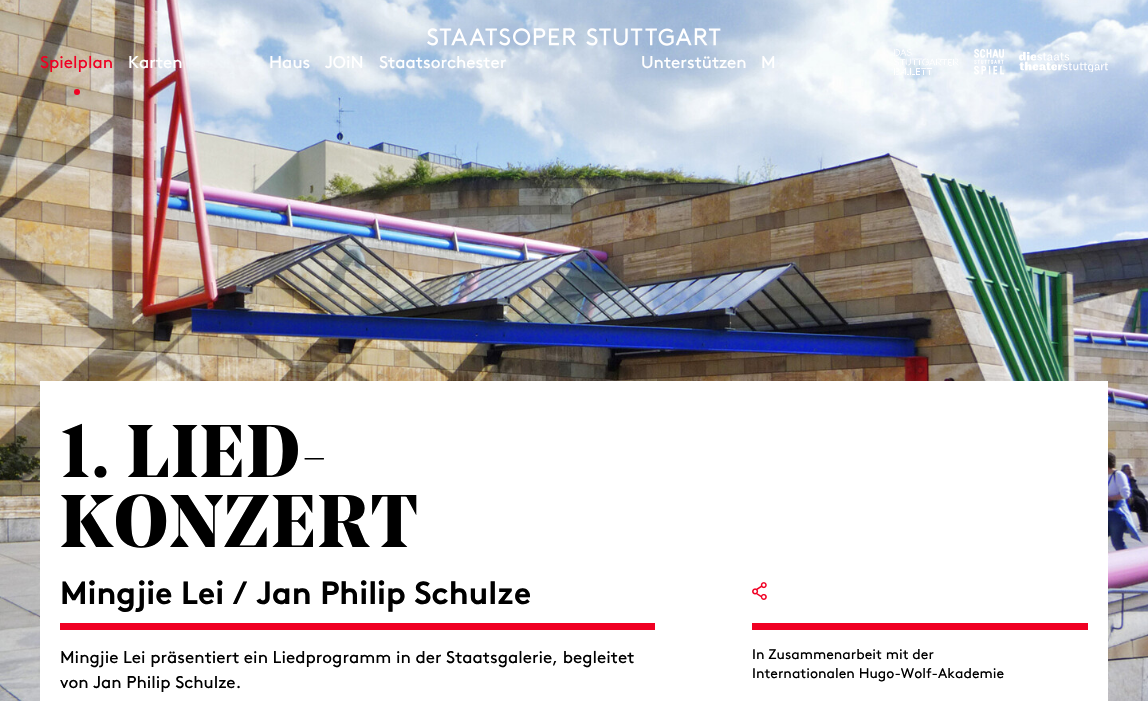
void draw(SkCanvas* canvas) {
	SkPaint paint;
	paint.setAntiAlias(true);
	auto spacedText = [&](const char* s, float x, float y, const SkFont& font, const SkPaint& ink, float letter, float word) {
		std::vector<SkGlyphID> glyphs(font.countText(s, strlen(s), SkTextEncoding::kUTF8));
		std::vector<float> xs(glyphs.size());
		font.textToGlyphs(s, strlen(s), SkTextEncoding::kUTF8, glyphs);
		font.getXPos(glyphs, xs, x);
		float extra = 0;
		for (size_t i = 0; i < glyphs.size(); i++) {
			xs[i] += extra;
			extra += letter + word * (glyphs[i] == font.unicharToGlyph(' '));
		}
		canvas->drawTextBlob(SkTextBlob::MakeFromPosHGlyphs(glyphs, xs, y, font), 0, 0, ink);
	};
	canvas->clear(0xffffffff);
	canvas->drawImageRect(SkImages::DeferredFromEncodedData(SkData::MakeFromFileName("img5.png")), SkRect::MakeXYWH(0, 0, 1148, 701), SkSamplingOptions());
	canvas->drawImageRect(SkImages::DeferredFromEncodedData(SkData::MakeFromFileName("img1.png")), SkRect::MakeXYWH(427, 28, 294, 18), SkSamplingOptions());
	SkFont f1(fontMgr->matchFamilyStyle("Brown", SkFontStyle::Normal()), 17);
	f1.setSubpixel(true);
	paint.setColor(0xfff00023);
	canvas->drawString("Spielplan", 40, 68, f1, paint);
	canvas->drawCircle(77, 92, 3, paint);
	paint.setColor(0xffffffff);
	canvas->drawString("Karten", 128, 68, f1, paint);
	canvas->drawString("Haus", 269, 68, f1, paint);
	canvas->drawString("JOiN", 325, 68, f1, paint);
	canvas->drawString("Staatsorchester", 379, 68, f1, paint);
	canvas->drawString("Unterstützen", 641, 68, f1, paint);
	canvas->drawString("M", 761, 68, f1, paint);
	canvas->drawImageRect(SkImages::DeferredFromEncodedData(SkData::MakeFromFileName("img2.png")), SkRect::MakeXYWH(894, 49, 65, 26), SkSamplingOptions());
	canvas->drawImageRect(SkImages::DeferredFromEncodedData(SkData::MakeFromFileName("img3.png")), SkRect::MakeXYWH(974, 49, 30, 26), SkSamplingOptions());
	canvas->drawImageRect(SkImages::DeferredFromEncodedData(SkData::MakeFromFileName("img4.png")), SkRect::MakeXYWH(1019, 52, 89, 20), SkSamplingOptions());
	canvas->drawRect(SkRect::MakeXYWH(40, 381, 1068, 320), paint);
	SkFont f2(fontMgr->matchFamilyStyle("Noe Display", SkFontStyle::Bold()), 74);
	f2.setSubpixel(true);
	paint.setColor(0xff000000);
	spacedText("1. LIED-", 60, 477, f2, paint, 1.5, 0);
	spacedText("KONZERT", 60, 547, f2, paint, 1.5, 0);
	SkFont f3(fontMgr->matchFamilyStyle("Brown", SkFontStyle::Bold()), 32);
	f3.setSubpixel(true);
	canvas->drawString("Mingjie Lei / Jan Philip Schulze", 60, 604, f3, paint);
	paint.setColor(0xfff00023);
	canvas->drawRect(SkRect::MakeXYWH(60, 623, 595, 7), paint);
	paint.setColor(0xff000000);
	canvas->drawString("Mingjie Lei präsentiert ein Liedprogramm in der Staatsgalerie, begleitet", 60, 663, f1, paint);
	canvas->drawString("von Jan Philip Schulze.", 60, 688, f1, paint);
	paint.setColor(0xfff00023);
	canvas->drawRect(SkRect::MakeXYWH(752, 623, 336, 7), paint);
	canvas->drawImageRect(SkImages::DeferredFromEncodedData(SkData::MakeFromFileName("img6.png")), SkRect::MakeXYWH(752, 582, 15, 18), SkSamplingOptions());
	SkFont f4(fontMgr->matchFamilyStyle("Brown", SkFontStyle::Normal()), 14);
	f4.setSubpixel(true);
	paint.setColor(0xff000000);
	canvas->drawString("In Zusammenarbeit mit der", 752, 659, f4, paint);
	canvas->drawString("Internationalen Hugo-Wolf-Akademie", 752, 678, f4, paint);
}
